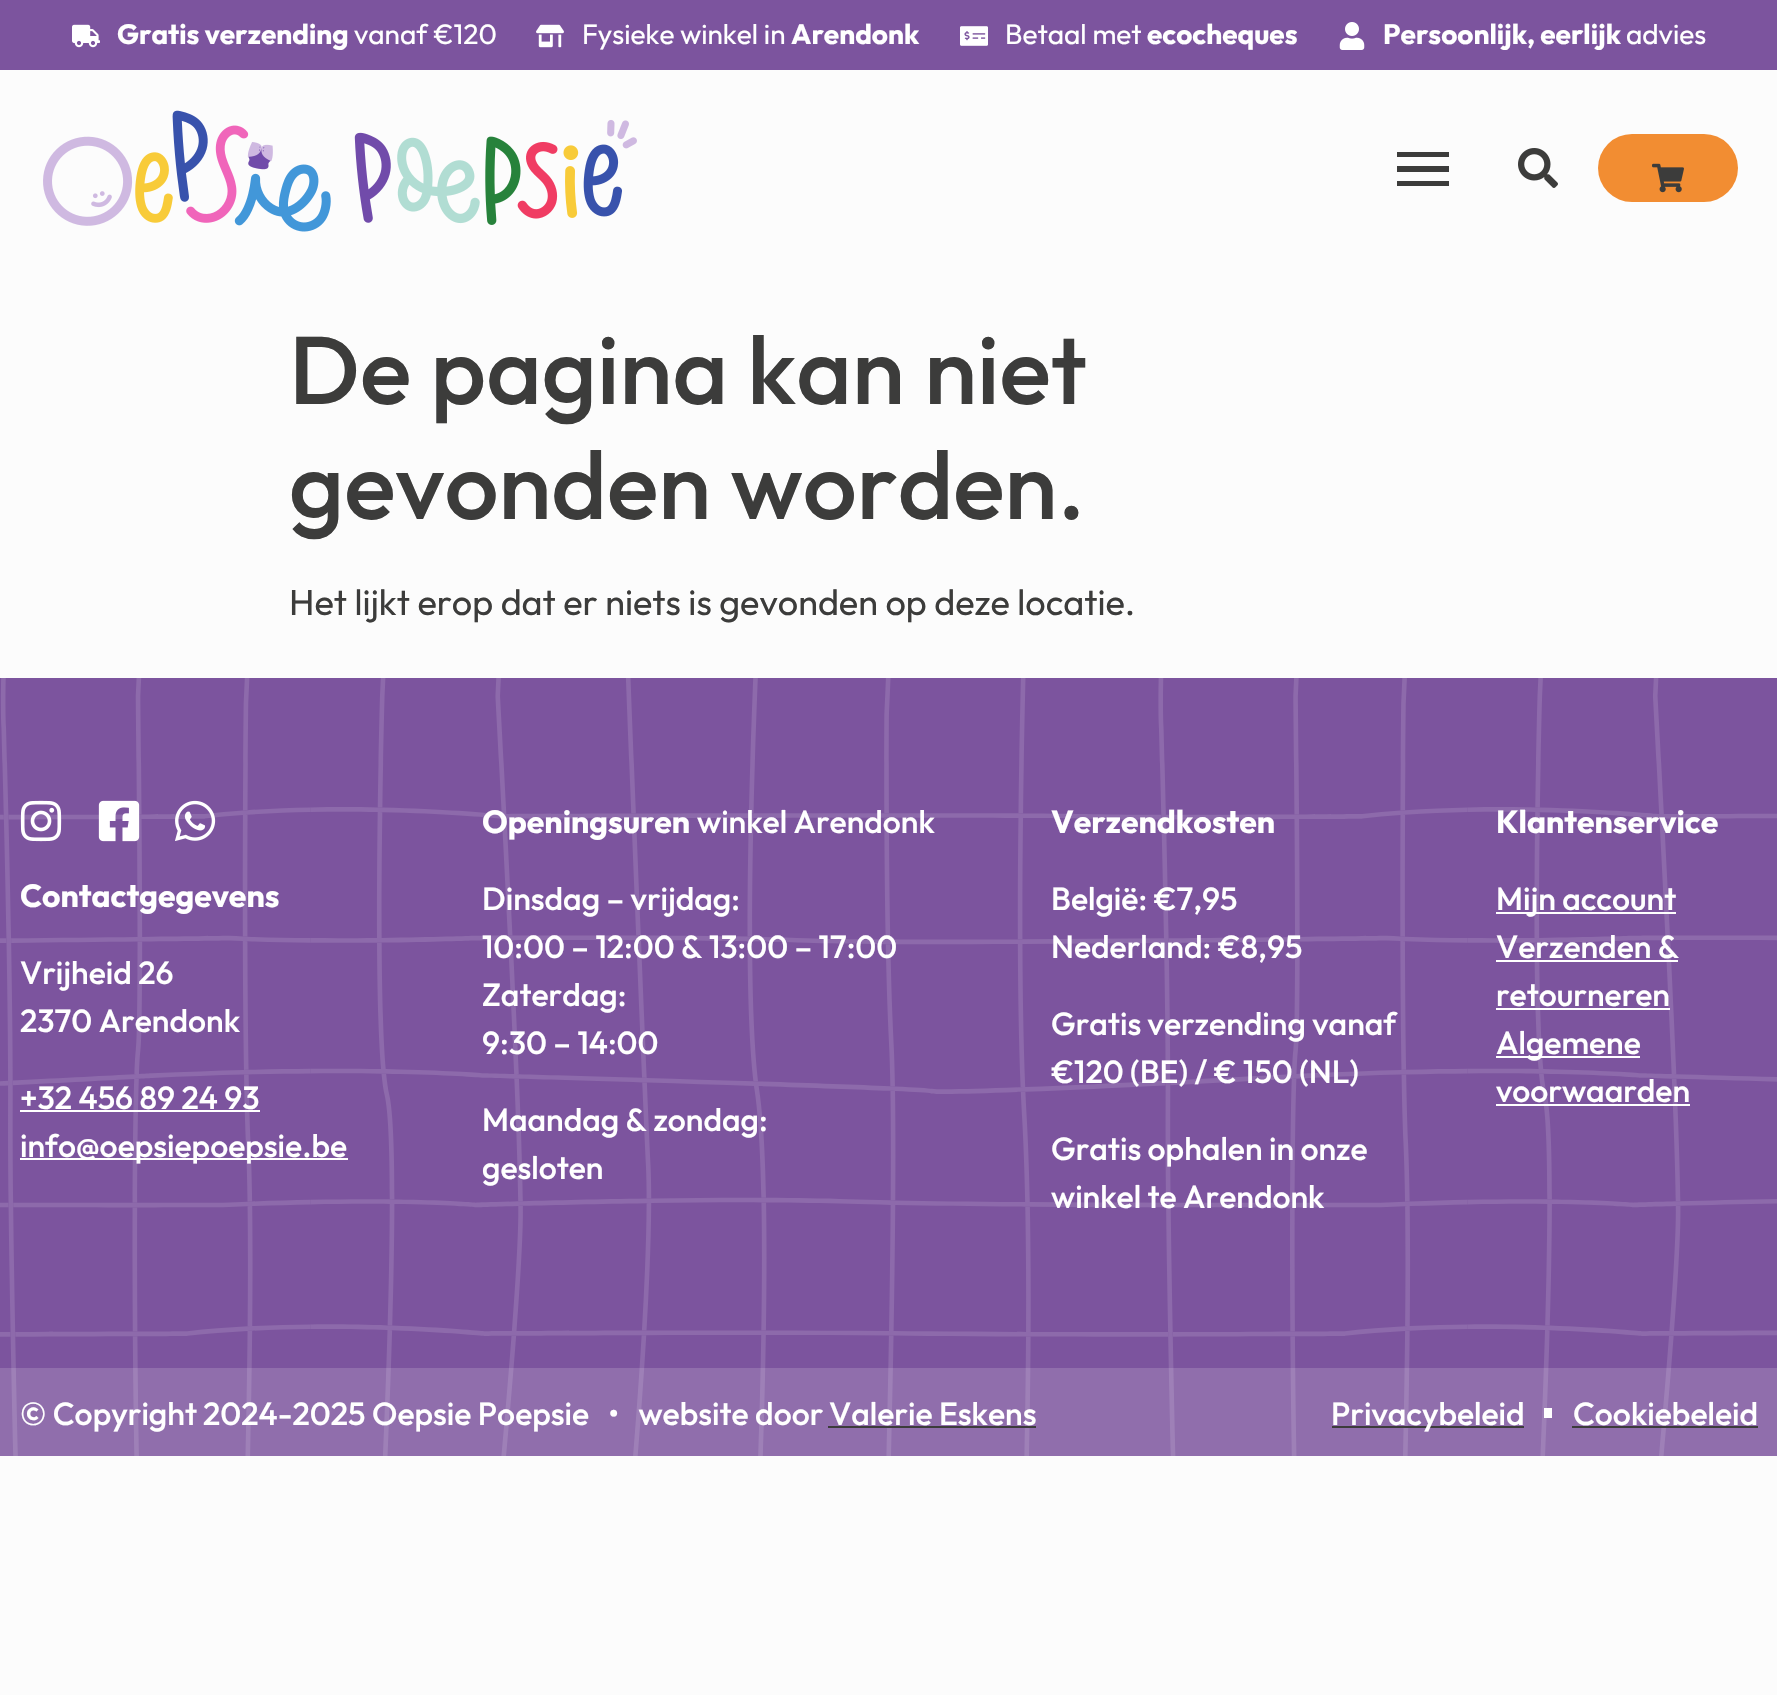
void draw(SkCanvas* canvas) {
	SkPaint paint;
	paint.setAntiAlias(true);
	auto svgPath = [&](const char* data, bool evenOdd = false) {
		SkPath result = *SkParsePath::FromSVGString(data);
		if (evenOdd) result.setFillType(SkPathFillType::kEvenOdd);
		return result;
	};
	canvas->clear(0xfffcfcfc);
	paint.setColor(0xff7c549e);
	canvas->drawRect(SkRect::MakeXYWH(0, 0, 1777, 70), paint);
	canvas->drawImageRect(SkImages::DeferredFromEncodedData(SkData::MakeFromFileName("img1.png")), SkRect::MakeXYWH(72, 24, 28, 24), SkSamplingOptions());
	SkFont f1(fontMgr->matchFamilyStyle("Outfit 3", SkFontStyle(100, SkFontStyle::kNormal_Width, SkFontStyle::kUpright_Slant)), 28);
	f1.setSubpixel(true);
	paint.setColor(0xffffffff);
	canvas->drawString("Gratis verzending", 117, 44, f1, paint);
	SkFont f2(fontMgr->matchFamilyStyle("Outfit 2", SkFontStyle(100, SkFontStyle::kNormal_Width, SkFontStyle::kUpright_Slant)), 28);
	f2.setSubpixel(true);
	canvas->drawString("vanaf €120", 354, 44, f2, paint);
	canvas->drawImageRect(SkImages::DeferredFromEncodedData(SkData::MakeFromFileName("img2.png")), SkRect::MakeXYWH(536, 24, 28, 24), SkSamplingOptions());
	canvas->drawString("Fysieke winkel in", 582, 44, f2, paint);
	canvas->drawString("Arendonk", 791, 44, f1, paint);
	canvas->drawImageRect(SkImages::DeferredFromEncodedData(SkData::MakeFromFileName("img3.png")), SkRect::MakeXYWH(960, 26, 28, 20), SkSamplingOptions());
	canvas->drawString("Betaal met", 1005, 44, f2, paint);
	canvas->drawString("ecocheques", 1147, 44, f1, paint);
	canvas->drawImageRect(SkImages::DeferredFromEncodedData(SkData::MakeFromFileName("img4.png")), SkRect::MakeXYWH(1339, 22, 26, 28), SkSamplingOptions());
	canvas->drawString("Persoonlijk, eerlijk", 1383, 44, f1, paint);
	canvas->drawString("advies", 1626, 44, f2, paint);
	canvas->drawImageRect(SkImages::DeferredFromEncodedData(SkData::MakeFromFileName("img5.png")), SkRect::MakeXYWH(43, 110, 594, 122), SkSamplingOptions());
	paint.setColor(0xff3c3c3b);
	canvas->drawPath(svgPath("M1397 186H1449V181H1397ZM1397 172H1449V166H1397ZM1397 152V157H1449V152Z"), paint);
	canvas->drawImageRect(SkImages::DeferredFromEncodedData(SkData::MakeFromFileName("img6.png")), SkRect::MakeXYWH(1518, 148, 40, 40), SkSamplingOptions());
	paint.setColor(0xfff28d32);
	canvas->drawRoundRect(SkRect::MakeXYWH(1598, 134, 140, 68), 34, 34, paint);
	canvas->drawImageRect(SkImages::DeferredFromEncodedData(SkData::MakeFromFileName("img7.png")), SkRect::MakeXYWH(1652, 163, 32, 30), SkSamplingOptions());
	SkFont f3(fontMgr->matchFamilyStyle("Outfit", SkFontStyle(100, SkFontStyle::kNormal_Width, SkFontStyle::kUpright_Slant)), 96);
	f3.setSubpixel(true);
	paint.setColor(0xff3c3c3b);
	canvas->drawString("De pagina kan niet", 289, 404, f3, paint);
	canvas->drawString("gevonden worden.", 289, 519, f3, paint);
	SkFont f4(fontMgr->matchFamilyStyle("Outfit 2", SkFontStyle(100, SkFontStyle::kNormal_Width, SkFontStyle::kUpright_Slant)), 36);
	f4.setSubpixel(true);
	canvas->drawString("Het lijkt erop dat er niets is gevonden op deze locatie.", 289, 615, f4, paint);
	canvas->drawImageRect(SkImages::DeferredFromEncodedData(SkData::MakeFromFileName("img8.png")), SkRect::MakeXYWH(0, 678, 1777, 778), SkSamplingOptions());
	canvas->drawImageRect(SkImages::DeferredFromEncodedData(SkData::MakeFromFileName("img9.png")), SkRect::MakeXYWH(20, 800, 42, 42), SkSamplingOptions());
	canvas->drawImageRect(SkImages::DeferredFromEncodedData(SkData::MakeFromFileName("img10.png")), SkRect::MakeXYWH(98, 800, 42, 42), SkSamplingOptions());
	canvas->drawImageRect(SkImages::DeferredFromEncodedData(SkData::MakeFromFileName("img11.png")), SkRect::MakeXYWH(175, 800, 41, 41), SkSamplingOptions());
	SkFont f5(fontMgr->matchFamilyStyle("Outfit 3", SkFontStyle(100, SkFontStyle::kNormal_Width, SkFontStyle::kUpright_Slant)), 32);
	f5.setSubpixel(true);
	paint.setColor(0xffffffff);
	canvas->drawString("Contactgegevens", 20, 907, f5, paint);
	SkFont f6(fontMgr->matchFamilyStyle("Outfit", SkFontStyle(100, SkFontStyle::kNormal_Width, SkFontStyle::kUpright_Slant)), 32);
	f6.setSubpixel(true);
	canvas->drawString("Vrijheid 26", 20, 984, f6, paint);
	canvas->drawString("2370 Arendonk", 20, 1032, f6, paint);
	canvas->drawString("+32 456 89 24 93", 20, 1109, f6, paint);
	canvas->drawRect(SkRect::MakeXYWH(20, 1110, 240, 2), paint);
	canvas->drawRect(SkRect::MakeXYWH(20, 1158, 328, 2), paint);
	canvas->drawString("info@oepsiepoepsie.be", 20, 1157, f6, paint);
	canvas->drawString("Openingsuren", 482, 833, f5, paint);
	canvas->drawString("winkel Arendonk", 697, 833, f6, paint);
	canvas->drawString("Dinsdag – vrijdag:", 482, 910, f6, paint);
	canvas->drawString("10:00 – 12:00 & 13:00 – 17:00", 482, 958, f6, paint);
	canvas->drawString("Zaterdag:", 482, 1006, f6, paint);
	canvas->drawString("9:30 – 14:00", 482, 1054, f6, paint);
	canvas->drawString("Maandag & zondag:", 482, 1131, f6, paint);
	canvas->drawString("gesloten", 482, 1179, f6, paint);
	canvas->drawString("Verzendkosten", 1051, 833, f5, paint);
	canvas->drawString("België: €7,95", 1051, 910, f6, paint);
	canvas->drawString("Nederland: €8,95", 1051, 958, f6, paint);
	canvas->drawString("Gratis verzending vanaf", 1051, 1035, f6, paint);
	canvas->drawString("€120 (BE) / € 150 (NL)", 1051, 1083, f6, paint);
	canvas->drawString("Gratis ophalen in onze", 1051, 1160, f6, paint);
	canvas->drawString("winkel te Arendonk", 1051, 1208, f6, paint);
	canvas->drawString("Klantenservice", 1496, 833, f5, paint);
	canvas->drawRect(SkRect::MakeXYWH(1496, 912, 180, 2), paint);
	canvas->drawString("Mijn account", 1496, 910, f6, paint);
	canvas->drawString("Verzenden &", 1496, 958, f6, paint);
	canvas->drawRect(SkRect::MakeXYWH(1496, 960, 182, 2), paint);
	canvas->drawString("retourneren", 1496, 1006, f6, paint);
	canvas->drawRect(SkRect::MakeXYWH(1496, 1008, 174, 2), paint);
	canvas->drawRect(SkRect::MakeXYWH(1496, 1056, 144, 2), paint);
	canvas->drawString("Algemene", 1496, 1054, f6, paint);
	canvas->drawString("voorwaarden", 1496, 1102, f6, paint);
	canvas->drawRect(SkRect::MakeXYWH(1496, 1104, 194, 2), paint);
	paint.setColor(0x26ffffff);
	canvas->drawRect(SkRect::MakeXYWH(0, 1368, 1777, 88), paint);
	paint.setColor(0xffffffff);
	canvas->drawString("© Copyright", 20, 1425, f6, paint);
	canvas->drawString("2024-2025", 203, 1425, f6, paint);
	canvas->drawString("Oepsie Poepsie   •   website door", 372, 1425, f6, paint);
	canvas->drawString("Valerie Eskens", 829, 1425, f6, paint);
	paint.setColor(0xff3c3c3b);
	canvas->drawRect(SkRect::MakeXYWH(828, 1426, 208, 2), paint);
	canvas->drawRect(SkRect::MakeXYWH(1332, 1426, 192, 2), paint);
	paint.setColor(0xffffffff);
	canvas->drawString("Privacybeleid", 1331, 1425, f6, paint);
	canvas->drawRect(SkRect::MakeXYWH(1544, 1408, 8, 10), paint);
	canvas->drawString("Cookiebeleid", 1573, 1425, f6, paint);
	paint.setColor(0xff3c3c3b);
	canvas->drawRect(SkRect::MakeXYWH(1572, 1426, 186, 2), paint);
}
